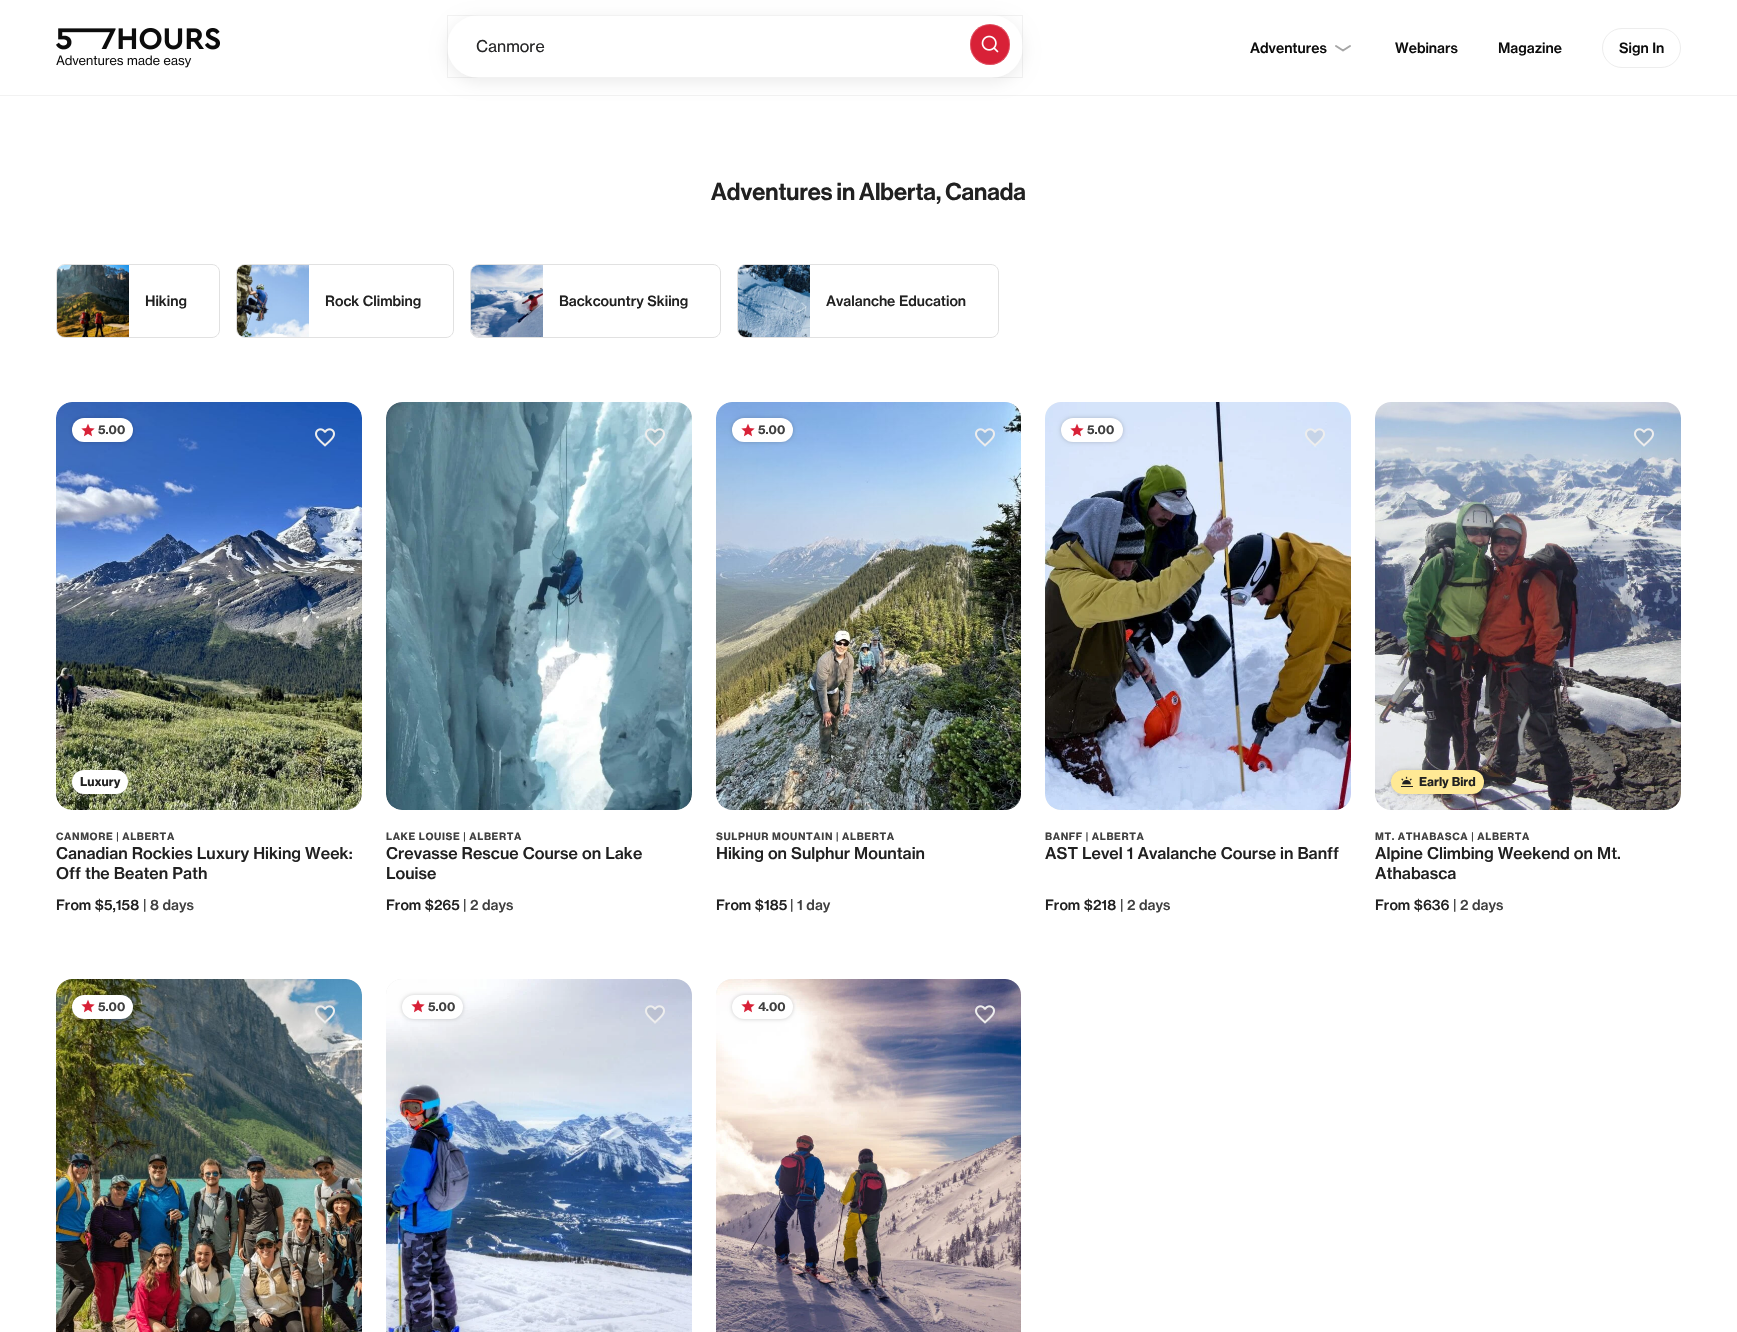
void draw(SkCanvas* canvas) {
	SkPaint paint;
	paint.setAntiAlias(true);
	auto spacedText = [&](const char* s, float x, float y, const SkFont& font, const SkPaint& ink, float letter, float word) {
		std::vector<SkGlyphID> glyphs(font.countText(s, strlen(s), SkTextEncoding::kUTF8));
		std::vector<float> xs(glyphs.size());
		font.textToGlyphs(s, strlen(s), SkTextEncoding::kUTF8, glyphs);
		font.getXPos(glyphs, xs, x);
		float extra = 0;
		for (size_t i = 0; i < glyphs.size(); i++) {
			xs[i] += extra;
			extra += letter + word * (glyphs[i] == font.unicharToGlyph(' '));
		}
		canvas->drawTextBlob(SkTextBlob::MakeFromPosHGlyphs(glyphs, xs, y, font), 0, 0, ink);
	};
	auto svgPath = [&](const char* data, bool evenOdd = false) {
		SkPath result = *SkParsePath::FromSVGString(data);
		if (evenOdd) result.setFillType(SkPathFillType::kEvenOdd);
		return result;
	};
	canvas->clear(0xffffffff);
	paint.setColor(0xfff2f2f2);
	canvas->drawRect(SkRect::MakeXYWH(0, 95, 1737, 1), paint);
	canvas->drawImageRect(SkImages::DeferredFromEncodedData(SkData::MakeFromFileName("img1.png")), SkRect::MakeXYWH(56, 28, 164, 40), SkSamplingOptions());
	paint.setColor(0x14000000);
	paint.setMaskFilter(SkMaskFilter::MakeBlur(kNormal_SkBlurStyle, 8));
	canvas->drawRoundRect(SkRect::MakeXYWH(447, 19, 576, 63), 31.5, 31.5, paint);
	paint.setMaskFilter(nullptr);
	paint.setColor(0xffffffff);
	canvas->drawRoundRect(SkRect::MakeXYWH(447, 15, 576, 63), 31.5, 31.5, paint);
	paint.setStroke(true);
	paint.setStrokeWidth(1);
	paint.setColor(0x0d000000);
	canvas->drawRect(SkRect::MakeXYWH(447.5, 15.5, 575, 62), paint);
	SkFont f1(fontMgr->matchFamilyStyle("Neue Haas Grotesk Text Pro", SkFontStyle::Normal()), 16);
	f1.setSubpixel(true);
	paint.setStroke(false);
	paint.setColor(0xff262627);
	canvas->drawString("Canmore", 476, 52, f1, paint);
	paint.setColor(0xffd82137);
	canvas->drawRoundRect(SkRect::MakeXYWH(970, 24, 40, 41), 20, 20, paint);
	paint.setStroke(true);
	paint.setColor(0x33ffffff);
	canvas->drawRoundRect(SkRect::MakeXYWH(970.5, 24.5, 39, 40), 19.5, 19.5, paint);
	canvas->drawImageRect(SkImages::DeferredFromEncodedData(SkData::MakeFromFileName("img2.png")), SkRect::MakeXYWH(981, 35, 18, 18), SkSamplingOptions());
	SkFont f2(fontMgr->matchFamilyStyle("Neue Haas Grotesk Text Pro", SkFontStyle(500, SkFontStyle::kNormal_Width, SkFontStyle::kUpright_Slant)), 14);
	f2.setSubpixel(true);
	paint.setStroke(false);
	paint.setColor(0xff0c0c0c);
	canvas->drawString("Adventures", 1250, 53, f2, paint);
	paint.setStroke(true);
	paint.setStrokeWidth(2);
	paint.setStrokeCap(SkPaint::kRound_Cap);
	paint.setStrokeJoin(SkPaint::kRound_Join);
	paint.setColor(0xffa5a5a5);
	canvas->drawPath(svgPath("M1336 46L1343 50.5L1350 46"), paint);
	paint.setStroke(false);
	paint.setColor(0xff0c0c0c);
	canvas->drawString("Webinars", 1395, 53, f2, paint);
	canvas->drawString("Magazine", 1498, 53, f2, paint);
	paint.setStroke(true);
	paint.setStrokeWidth(1);
	paint.setStrokeCap(SkPaint::kButt_Cap);
	paint.setStrokeJoin(SkPaint::kMiter_Join);
	paint.setColor(0xffededed);
	canvas->drawRoundRect(SkRect::MakeXYWH(1602.5, 28.5, 78, 39), 19.5, 19.5, paint);
	paint.setStroke(false);
	paint.setColor(0xff0c0c0c);
	canvas->drawString("Sign In", 1619, 53, f2, paint);
	SkFont f3(fontMgr->matchFamilyStyle("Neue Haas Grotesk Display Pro", SkFontStyle(500, SkFontStyle::kNormal_Width, SkFontStyle::kUpright_Slant)), 24);
	f3.setSubpixel(true);
	paint.setColor(0xff212121);
	canvas->drawString("Adventures in Alberta, Canada", 711, 200, f3, paint);
	paint.setStroke(true);
	paint.setColor(0xffe1e1e1);
	canvas->drawPath(svgPath("M65 264.5H212C216 264.5 219.5 268 219.5 272V330C219.5 334 216 337.5 212 337.5H65C60.5 337.5 56.5 333.5 56.5 329V273C56.5 268.5 60.5 264.5 65 264.5Z"), paint);
	canvas->drawImageRect(SkImages::DeferredFromEncodedData(SkData::MakeFromFileName("img3.png")), SkRect::MakeXYWH(57, 265, 72, 72), SkSamplingOptions());
	paint.setStroke(false);
	paint.setColor(0xff212121);
	canvas->drawString("Hiking", 145, 306, f2, paint);
	paint.setStroke(true);
	paint.setColor(0xffe1e1e1);
	canvas->drawPath(svgPath("M245 264.5H446C450 264.5 453.5 268 453.5 272V330C453.5 334 450 337.5 446 337.5H245C240.5 337.5 236.5 333.5 236.5 329V273C236.5 268.5 240.5 264.5 245 264.5Z"), paint);
	canvas->drawImageRect(SkImages::DeferredFromEncodedData(SkData::MakeFromFileName("img4.png")), SkRect::MakeXYWH(237, 265, 72, 72), SkSamplingOptions());
	paint.setStroke(false);
	paint.setColor(0xff212121);
	canvas->drawString("Rock Climbing", 325, 306, f2, paint);
	paint.setStroke(true);
	paint.setColor(0xffe1e1e1);
	canvas->drawPath(svgPath("M479 264.5H713C717 264.5 720.5 268 720.5 272V330C720.5 334 717 337.5 713 337.5H479C474.5 337.5 470.5 333.5 470.5 329V273C470.5 268.5 474.5 264.5 479 264.5Z"), paint);
	canvas->drawImageRect(SkImages::DeferredFromEncodedData(SkData::MakeFromFileName("img5.png")), SkRect::MakeXYWH(471, 265, 72, 72), SkSamplingOptions());
	paint.setStroke(false);
	paint.setColor(0xff212121);
	canvas->drawString("Backcountry Skiing", 559, 306, f2, paint);
	paint.setStroke(true);
	paint.setColor(0xffe1e1e1);
	canvas->drawPath(svgPath("M746 264.5H991C995 264.5 998.5 268 998.5 272V330C998.5 334 995 337.5 991 337.5H746C741.5 337.5 737.5 333.5 737.5 329V273C737.5 268.5 741.5 264.5 746 264.5Z"), paint);
	canvas->drawImageRect(SkImages::DeferredFromEncodedData(SkData::MakeFromFileName("img6.png")), SkRect::MakeXYWH(738, 265, 72, 72), SkSamplingOptions());
	paint.setStroke(false);
	paint.setColor(0xff212121);
	canvas->drawString("Avalanche Education", 826, 306, f2, paint);
	paint.setColor(0xfff0f0f0);
	canvas->drawRoundRect(SkRect::MakeXYWH(56, 402, 306, 408), 16, 16, paint);
	canvas->drawImageRect(SkImages::DeferredFromEncodedData(SkData::MakeFromFileName("img7.png")), SkRect::MakeXYWH(56, 402, 306, 408), SkSamplingOptions());
	paint.setColor(0x33000000);
	paint.setMaskFilter(SkMaskFilter::MakeBlur(kNormal_SkBlurStyle, 2));
	canvas->drawRoundRect(SkRect::MakeXYWH(72, 418, 61, 24), 12, 12, paint);
	paint.setMaskFilter(nullptr);
	paint.setColor(0xffffffff);
	canvas->drawRoundRect(SkRect::MakeXYWH(72, 418, 61, 24), 12, 12, paint);
	canvas->drawImageRect(SkImages::DeferredFromEncodedData(SkData::MakeFromFileName("img8.png")), SkRect::MakeXYWH(81, 423, 14, 14), SkSamplingOptions());
	SkFont f4(fontMgr->matchFamilyStyle("Neue Haas Grotesk Text Pro", SkFontStyle::Bold()), 12);
	f4.setSubpixel(true);
	paint.setColor(0xff404040);
	canvas->drawString("5.00", 98, 434, f4, paint);
	paint.setColor(0x33000000);
	paint.setMaskFilter(SkMaskFilter::MakeBlur(kNormal_SkBlurStyle, 2));
	canvas->drawRoundRect(SkRect::MakeXYWH(72, 770, 56, 24), 12, 12, paint);
	paint.setMaskFilter(nullptr);
	paint.setColor(0xffffffff);
	canvas->drawRoundRect(SkRect::MakeXYWH(72, 770, 56, 24), 12, 12, paint);
	paint.setColor(0xff212121);
	canvas->drawString("Luxury", 80, 786, f4, paint);
	SkFont f5(fontMgr->matchFamilyStyle("Neue Haas Grotesk Text Pro", SkFontStyle::Bold()), 10);
	f5.setSubpixel(true);
	paint.setColor(0xff404040);
	spacedText("CANMORE | ALBERTA", 56, 840, f5, paint, 0.6, 0);
	SkFont f6(fontMgr->matchFamilyStyle("Neue Haas Grotesk Text Pro", SkFontStyle(500, SkFontStyle::kNormal_Width, SkFontStyle::kUpright_Slant)), 16);
	f6.setSubpixel(true);
	paint.setColor(0xff212121);
	canvas->drawString("Canadian Rockies Luxury Hiking Week:", 56, 859, f6, paint);
	canvas->drawString("Off the Beaten Path", 56, 879, f6, paint);
	canvas->drawString("From $5,158", 56, 910, f2, paint);
	paint.setColor(0xff404040);
	canvas->drawString("| 8 days", 143, 910, f2, paint);
	canvas->drawImageRect(SkImages::DeferredFromEncodedData(SkData::MakeFromFileName("img9.png")), SkRect::MakeXYWH(315, 428, 20, 19), SkSamplingOptions());
	canvas->drawImageRect(SkImages::DeferredFromEncodedData(SkData::MakeFromFileName("img10.png")), SkRect::MakeXYWH(315, 428, 20, 18), SkSamplingOptions());
	paint.setColor(0xfff0f0f0);
	canvas->drawRoundRect(SkRect::MakeXYWH(386, 402, 306, 408), 16, 16, paint);
	canvas->drawImageRect(SkImages::DeferredFromEncodedData(SkData::MakeFromFileName("img13.png")), SkRect::MakeXYWH(386, 402, 306, 408), SkSamplingOptions());
	canvas->drawImageRect(SkImages::DeferredFromEncodedData(SkData::MakeFromFileName("img11.png")), SkRect::MakeXYWH(645, 428, 20, 19), SkSamplingOptions());
	canvas->drawImageRect(SkImages::DeferredFromEncodedData(SkData::MakeFromFileName("img12.png")), SkRect::MakeXYWH(645, 428, 20, 18), SkSamplingOptions());
	paint.setColor(0xff404040);
	spacedText("LAKE LOUISE | ALBERTA", 386, 840, f5, paint, 0.6, 0);
	paint.setColor(0xff212121);
	canvas->drawString("Crevasse Rescue Course on Lake", 386, 859, f6, paint);
	canvas->drawString("Louise", 386, 879, f6, paint);
	canvas->drawString("From $265", 386, 910, f2, paint);
	paint.setColor(0xff404040);
	canvas->drawString("| 2 days", 463, 910, f2, paint);
	paint.setColor(0xfff0f0f0);
	canvas->drawRoundRect(SkRect::MakeXYWH(716, 402, 305, 408), 16, 16, paint);
	canvas->drawImageRect(SkImages::DeferredFromEncodedData(SkData::MakeFromFileName("img14.png")), SkRect::MakeXYWH(716, 402, 305, 408), SkSamplingOptions());
	paint.setColor(0x33000000);
	paint.setMaskFilter(SkMaskFilter::MakeBlur(kNormal_SkBlurStyle, 2));
	canvas->drawRoundRect(SkRect::MakeXYWH(732, 418, 61, 24), 12, 12, paint);
	paint.setMaskFilter(nullptr);
	paint.setColor(0xffffffff);
	canvas->drawRoundRect(SkRect::MakeXYWH(732, 418, 61, 24), 12, 12, paint);
	canvas->drawImageRect(SkImages::DeferredFromEncodedData(SkData::MakeFromFileName("img8.png")), SkRect::MakeXYWH(741, 423, 14, 14), SkSamplingOptions());
	paint.setColor(0xff404040);
	canvas->drawString("5.00", 758, 434, f4, paint);
	spacedText("SULPHUR MOUNTAIN | ALBERTA", 716, 840, f5, paint, 0.6, 0);
	paint.setColor(0xff212121);
	canvas->drawString("Hiking on Sulphur Mountain", 716, 859, f6, paint);
	canvas->drawString("From $185", 716, 910, f2, paint);
	paint.setColor(0xff404040);
	canvas->drawString("| 1 day", 790, 910, f2, paint);
	canvas->drawImageRect(SkImages::DeferredFromEncodedData(SkData::MakeFromFileName("img15.png")), SkRect::MakeXYWH(975, 428, 20, 19), SkSamplingOptions());
	canvas->drawImageRect(SkImages::DeferredFromEncodedData(SkData::MakeFromFileName("img16.png")), SkRect::MakeXYWH(975, 428, 20, 18), SkSamplingOptions());
	paint.setColor(0xfff0f0f0);
	canvas->drawRoundRect(SkRect::MakeXYWH(1045, 402, 306, 408), 16, 16, paint);
	canvas->drawImageRect(SkImages::DeferredFromEncodedData(SkData::MakeFromFileName("img17.png")), SkRect::MakeXYWH(1045, 402, 306, 408), SkSamplingOptions());
	paint.setColor(0x33000000);
	paint.setMaskFilter(SkMaskFilter::MakeBlur(kNormal_SkBlurStyle, 2));
	canvas->drawRoundRect(SkRect::MakeXYWH(1061, 418, 62, 24), 12, 12, paint);
	paint.setMaskFilter(nullptr);
	paint.setColor(0xffffffff);
	canvas->drawRoundRect(SkRect::MakeXYWH(1061, 418, 62, 24), 12, 12, paint);
	canvas->drawImageRect(SkImages::DeferredFromEncodedData(SkData::MakeFromFileName("img8.png")), SkRect::MakeXYWH(1070, 423, 14, 14), SkSamplingOptions());
	paint.setColor(0xff404040);
	canvas->drawString("5.00", 1087, 434, f4, paint);
	spacedText("BANFF | ALBERTA", 1045, 840, f5, paint, 0.6, 0);
	paint.setColor(0xff212121);
	canvas->drawString("AST Level 1 Avalanche Course in Banff", 1045, 859, f6, paint);
	canvas->drawString("From $218", 1045, 910, f2, paint);
	paint.setColor(0xff404040);
	canvas->drawString("| 2 days", 1120, 910, f2, paint);
	canvas->drawImageRect(SkImages::DeferredFromEncodedData(SkData::MakeFromFileName("img18.png")), SkRect::MakeXYWH(1305, 428, 20, 19), SkSamplingOptions());
	canvas->drawImageRect(SkImages::DeferredFromEncodedData(SkData::MakeFromFileName("img19.png")), SkRect::MakeXYWH(1305, 428, 20, 18), SkSamplingOptions());
	paint.setColor(0xfff0f0f0);
	canvas->drawRoundRect(SkRect::MakeXYWH(1375, 402, 306, 408), 16, 16, paint);
	canvas->drawImageRect(SkImages::DeferredFromEncodedData(SkData::MakeFromFileName("img22.png")), SkRect::MakeXYWH(1375, 402, 306, 408), SkSamplingOptions());
	canvas->drawImageRect(SkImages::DeferredFromEncodedData(SkData::MakeFromFileName("img20.png")), SkRect::MakeXYWH(1634, 428, 20, 19), SkSamplingOptions());
	canvas->drawImageRect(SkImages::DeferredFromEncodedData(SkData::MakeFromFileName("img21.png")), SkRect::MakeXYWH(1634, 428, 20, 18), SkSamplingOptions());
	paint.setColor(0x33000000);
	paint.setMaskFilter(SkMaskFilter::MakeBlur(kNormal_SkBlurStyle, 2));
	canvas->drawRoundRect(SkRect::MakeXYWH(1391, 770, 93, 24), 12, 12, paint);
	paint.setMaskFilter(nullptr);
	paint.setColor(0xffffe995);
	canvas->drawRoundRect(SkRect::MakeXYWH(1391, 770, 93, 24), 12, 12, paint);
	canvas->drawImageRect(SkImages::DeferredFromEncodedData(SkData::MakeFromFileName("img23.png")), SkRect::MakeXYWH(1401, 776, 12, 11), SkSamplingOptions());
	paint.setColor(0xff212121);
	canvas->drawString("Early Bird", 1419, 786, f4, paint);
	paint.setColor(0xff404040);
	spacedText("MT. ATHABASCA | ALBERTA", 1375, 840, f5, paint, 0.6, 0);
	paint.setColor(0xff212121);
	canvas->drawString("Alpine Climbing Weekend on Mt.", 1375, 859, f6, paint);
	canvas->drawString("Athabasca", 1375, 879, f6, paint);
	canvas->drawString("From $636", 1375, 910, f2, paint);
	paint.setColor(0xff404040);
	canvas->drawString("| 2 days", 1453, 910, f2, paint);
	paint.setColor(0xfff0f0f0);
	canvas->drawRoundRect(SkRect::MakeXYWH(56, 979, 306, 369), 16, 16, paint);
	canvas->drawImageRect(SkImages::DeferredFromEncodedData(SkData::MakeFromFileName("img24.png")), SkRect::MakeXYWH(56, 979, 306, 353), SkSamplingOptions());
	paint.setColor(0x33000000);
	paint.setMaskFilter(SkMaskFilter::MakeBlur(kNormal_SkBlurStyle, 2));
	canvas->drawRoundRect(SkRect::MakeXYWH(72, 995, 61, 24), 12, 12, paint);
	paint.setMaskFilter(nullptr);
	paint.setColor(0xffffffff);
	canvas->drawRoundRect(SkRect::MakeXYWH(72, 995, 61, 24), 12, 12, paint);
	canvas->drawImageRect(SkImages::DeferredFromEncodedData(SkData::MakeFromFileName("img8.png")), SkRect::MakeXYWH(81, 999, 14, 14), SkSamplingOptions());
	paint.setColor(0xff404040);
	canvas->drawString("5.00", 98, 1011, f4, paint);
	canvas->drawImageRect(SkImages::DeferredFromEncodedData(SkData::MakeFromFileName("img25.png")), SkRect::MakeXYWH(315, 1005, 20, 19), SkSamplingOptions());
	canvas->drawImageRect(SkImages::DeferredFromEncodedData(SkData::MakeFromFileName("img26.png")), SkRect::MakeXYWH(315, 1005, 20, 18), SkSamplingOptions());
	paint.setColor(0xfff0f0f0);
	canvas->drawRoundRect(SkRect::MakeXYWH(386, 979, 306, 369), 16, 16, paint);
	canvas->drawImageRect(SkImages::DeferredFromEncodedData(SkData::MakeFromFileName("img27.png")), SkRect::MakeXYWH(386, 979, 306, 353), SkSamplingOptions());
	paint.setColor(0x33000000);
	paint.setMaskFilter(SkMaskFilter::MakeBlur(kNormal_SkBlurStyle, 2));
	canvas->drawRoundRect(SkRect::MakeXYWH(402, 995, 61, 24), 12, 12, paint);
	paint.setMaskFilter(nullptr);
	paint.setColor(0xffffffff);
	canvas->drawRoundRect(SkRect::MakeXYWH(402, 995, 61, 24), 12, 12, paint);
	canvas->drawImageRect(SkImages::DeferredFromEncodedData(SkData::MakeFromFileName("img8.png")), SkRect::MakeXYWH(411, 999, 14, 14), SkSamplingOptions());
	paint.setColor(0xff404040);
	canvas->drawString("5.00", 428, 1011, f4, paint);
	canvas->drawImageRect(SkImages::DeferredFromEncodedData(SkData::MakeFromFileName("img28.png")), SkRect::MakeXYWH(645, 1005, 20, 19), SkSamplingOptions());
	canvas->drawImageRect(SkImages::DeferredFromEncodedData(SkData::MakeFromFileName("img29.png")), SkRect::MakeXYWH(645, 1005, 20, 18), SkSamplingOptions());
	paint.setColor(0xfff0f0f0);
	canvas->drawRoundRect(SkRect::MakeXYWH(716, 979, 305, 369), 16, 16, paint);
	canvas->drawImageRect(SkImages::DeferredFromEncodedData(SkData::MakeFromFileName("img30.png")), SkRect::MakeXYWH(716, 979, 305, 353), SkSamplingOptions());
	paint.setColor(0x33000000);
	paint.setMaskFilter(SkMaskFilter::MakeBlur(kNormal_SkBlurStyle, 2));
	canvas->drawRoundRect(SkRect::MakeXYWH(732, 995, 61, 24), 12, 12, paint);
	paint.setMaskFilter(nullptr);
	paint.setColor(0xffffffff);
	canvas->drawRoundRect(SkRect::MakeXYWH(732, 995, 61, 24), 12, 12, paint);
	canvas->drawImageRect(SkImages::DeferredFromEncodedData(SkData::MakeFromFileName("img8.png")), SkRect::MakeXYWH(741, 999, 14, 14), SkSamplingOptions());
	paint.setColor(0xff404040);
	canvas->drawString("4.00", 758, 1011, f4, paint);
	canvas->drawImageRect(SkImages::DeferredFromEncodedData(SkData::MakeFromFileName("img31.png")), SkRect::MakeXYWH(975, 1005, 20, 19), SkSamplingOptions());
	canvas->drawImageRect(SkImages::DeferredFromEncodedData(SkData::MakeFromFileName("img32.png")), SkRect::MakeXYWH(975, 1005, 20, 18), SkSamplingOptions());
}
